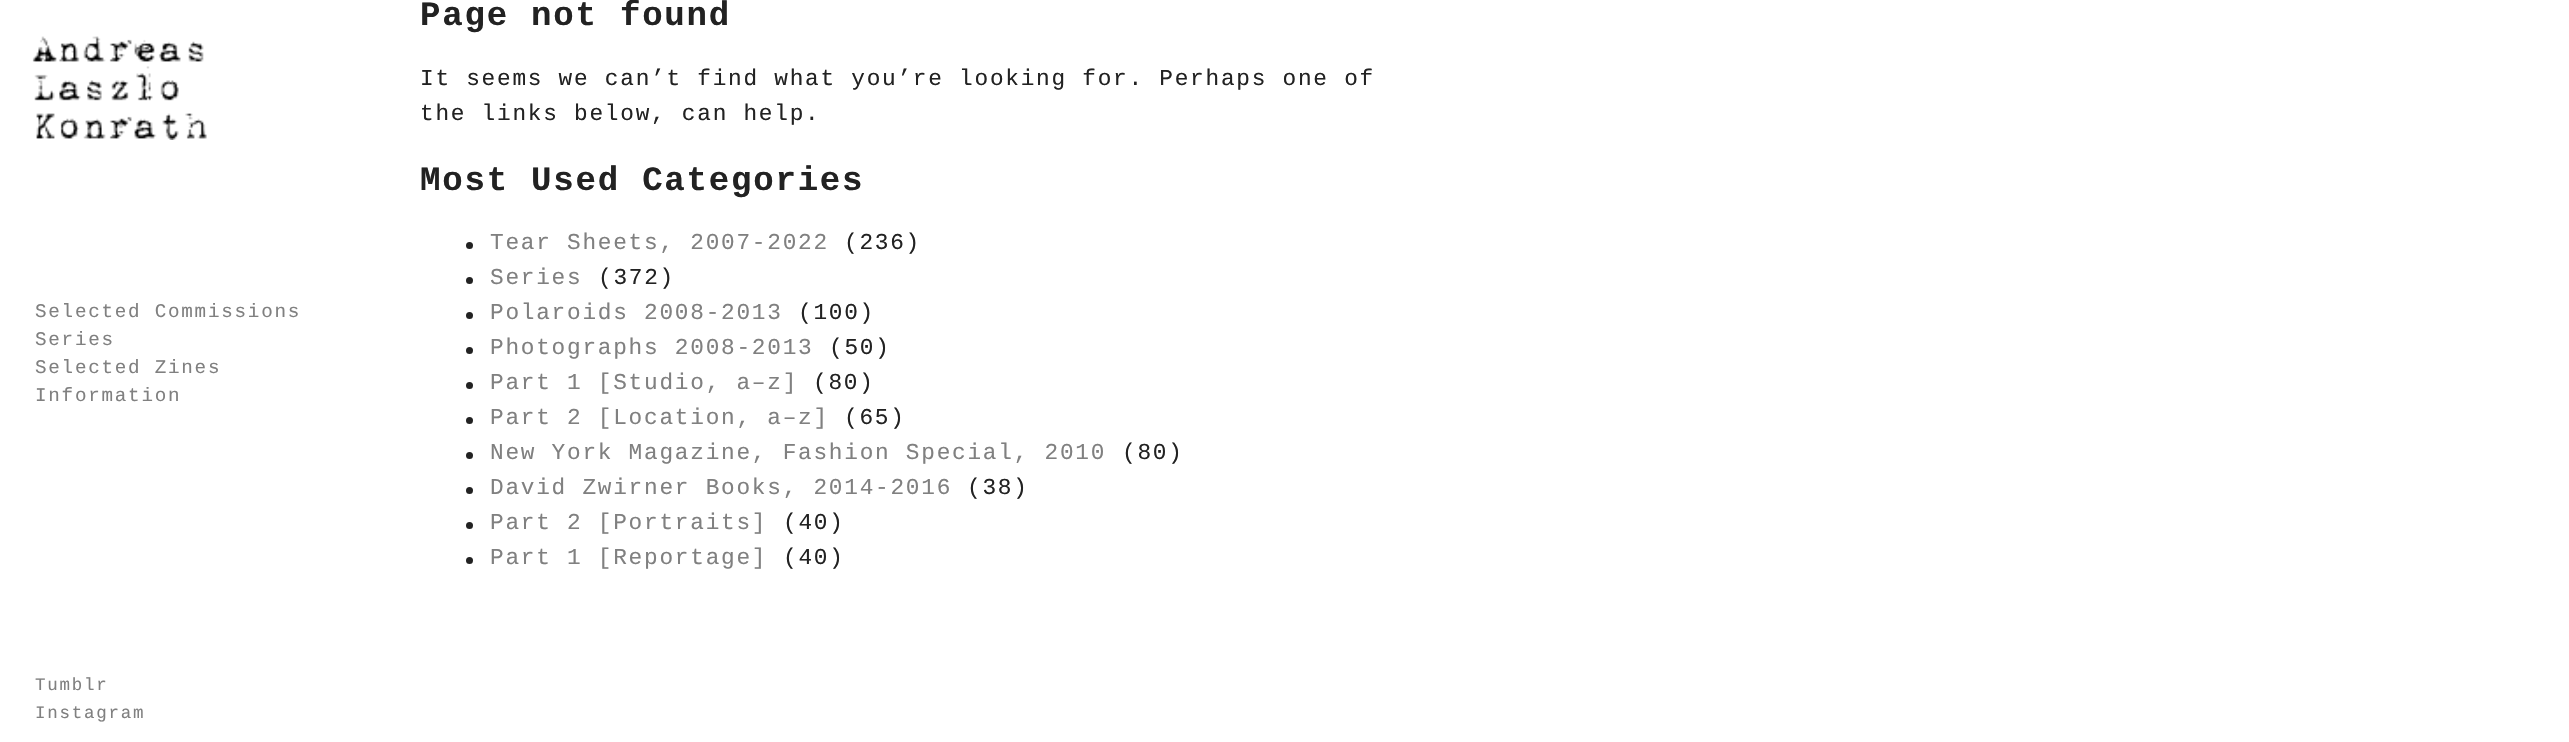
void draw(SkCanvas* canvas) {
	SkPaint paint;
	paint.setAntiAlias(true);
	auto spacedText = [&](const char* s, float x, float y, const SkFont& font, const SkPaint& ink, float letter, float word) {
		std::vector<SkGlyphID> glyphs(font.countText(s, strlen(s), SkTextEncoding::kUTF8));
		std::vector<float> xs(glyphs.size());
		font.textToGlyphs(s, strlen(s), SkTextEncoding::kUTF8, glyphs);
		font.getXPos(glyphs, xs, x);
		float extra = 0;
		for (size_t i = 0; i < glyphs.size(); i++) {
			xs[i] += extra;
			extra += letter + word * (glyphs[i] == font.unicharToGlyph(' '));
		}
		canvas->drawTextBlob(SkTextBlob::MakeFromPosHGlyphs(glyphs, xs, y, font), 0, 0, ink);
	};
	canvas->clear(0xffffffff);
	canvas->drawImageRect(SkImages::DeferredFromEncodedData(SkData::MakeFromFileName("img1.png")), SkRect::MakeXYWH(32, 36, 175, 104), SkSamplingOptions());
	SkFont f1(fontMgr->matchFamilyStyle("Liberation Mono", SkFontStyle::Normal()), 19.25);
	f1.setSubpixel(true);
	paint.setColor(0xff808080);
	spacedText("Selected Commissions", 35, 317, f1, paint, 1.75, 0);
	spacedText("Series", 35, 345, f1, paint, 1.75, 0);
	spacedText("Selected Zines", 35, 373, f1, paint, 1.75, 0);
	spacedText("Information", 35, 401, f1, paint, 1.75, 0);
	SkFont f2(fontMgr->matchFamilyStyle("Liberation Mono", SkFontStyle::Normal()), 17.5);
	f2.setSubpixel(true);
	spacedText("Tumblr", 35, 690, f2, paint, 1.75, 0);
	spacedText("Instagram", 35, 718, f2, paint, 1.75, 0);
	SkFont f3(fontMgr->matchFamilyStyle("Liberation Mono", SkFontStyle::Bold()), 34.1);
	f3.setSubpixel(true);
	paint.setColor(0xff222222);
	spacedText("Page not found", 420, 25, f3, paint, 1.75, 0);
	SkFont f4(fontMgr->matchFamilyStyle("Liberation Mono", SkFontStyle::Normal()), 22.75);
	f4.setSubpixel(true);
	spacedText("It seems we can’t find what you’re looking for. Perhaps one of", 420, 85, f4, paint, 1.75, 0);
	spacedText("the links below, can help.", 420, 120, f4, paint, 1.75, 0);
	spacedText("Most Used Categories", 420, 190, f3, paint, 1.75, 0);
	canvas->drawCircle(469.5, 245.5, 3.5, paint);
	paint.setColor(0xff808080);
	spacedText("Tear Sheets, 2007-2022", 490, 249, f4, paint, 1.75, 0);
	paint.setColor(0xff222222);
	spacedText("(236)", 844, 249, f4, paint, 1.75, 0);
	canvas->drawCircle(469.5, 280.5, 3.5, paint);
	paint.setColor(0xff808080);
	spacedText("Series", 490, 284, f4, paint, 1.75, 0);
	paint.setColor(0xff222222);
	spacedText("(372)", 598, 284, f4, paint, 1.75, 0);
	canvas->drawCircle(469.5, 315.5, 3.5, paint);
	paint.setColor(0xff808080);
	spacedText("Polaroids 2008-2013", 490, 319, f4, paint, 1.75, 0);
	paint.setColor(0xff222222);
	spacedText("(100)", 798, 319, f4, paint, 1.75, 0);
	canvas->drawCircle(469.5, 350.5, 3.5, paint);
	paint.setColor(0xff808080);
	spacedText("Photographs 2008-2013", 490, 354, f4, paint, 1.75, 0);
	paint.setColor(0xff222222);
	spacedText("(50)", 829, 354, f4, paint, 1.75, 0);
	canvas->drawCircle(469.5, 385.5, 3.5, paint);
	paint.setColor(0xff808080);
	spacedText("Part 1 [Studio, a–z]", 490, 389, f4, paint, 1.75, 0);
	paint.setColor(0xff222222);
	spacedText("(80)", 813, 389, f4, paint, 1.75, 0);
	canvas->drawCircle(469.5, 420.5, 3.5, paint);
	paint.setColor(0xff808080);
	spacedText("Part 2 [Location, a–z]", 490, 424, f4, paint, 1.75, 0);
	paint.setColor(0xff222222);
	spacedText("(65)", 844, 424, f4, paint, 1.75, 0);
	canvas->drawCircle(469.5, 455.5, 3.5, paint);
	paint.setColor(0xff808080);
	spacedText("New York Magazine, Fashion Special, 2010", 490, 459, f4, paint, 1.75, 0);
	paint.setColor(0xff222222);
	spacedText("(80)", 1122, 459, f4, paint, 1.75, 0);
	canvas->drawCircle(469.5, 490.5, 3.5, paint);
	paint.setColor(0xff808080);
	spacedText("David Zwirner Books, 2014-2016", 490, 494, f4, paint, 1.75, 0);
	paint.setColor(0xff222222);
	spacedText("(38)", 967, 494, f4, paint, 1.75, 0);
	canvas->drawCircle(469.5, 525.5, 3.5, paint);
	paint.setColor(0xff808080);
	spacedText("Part 2 [Portraits]", 490, 529, f4, paint, 1.75, 0);
	paint.setColor(0xff222222);
	spacedText("(40)", 783, 529, f4, paint, 1.75, 0);
	canvas->drawCircle(469.5, 560.5, 3.5, paint);
	paint.setColor(0xff808080);
	spacedText("Part 1 [Reportage]", 490, 564, f4, paint, 1.75, 0);
	paint.setColor(0xff222222);
	spacedText("(40)", 783, 564, f4, paint, 1.75, 0);
}
